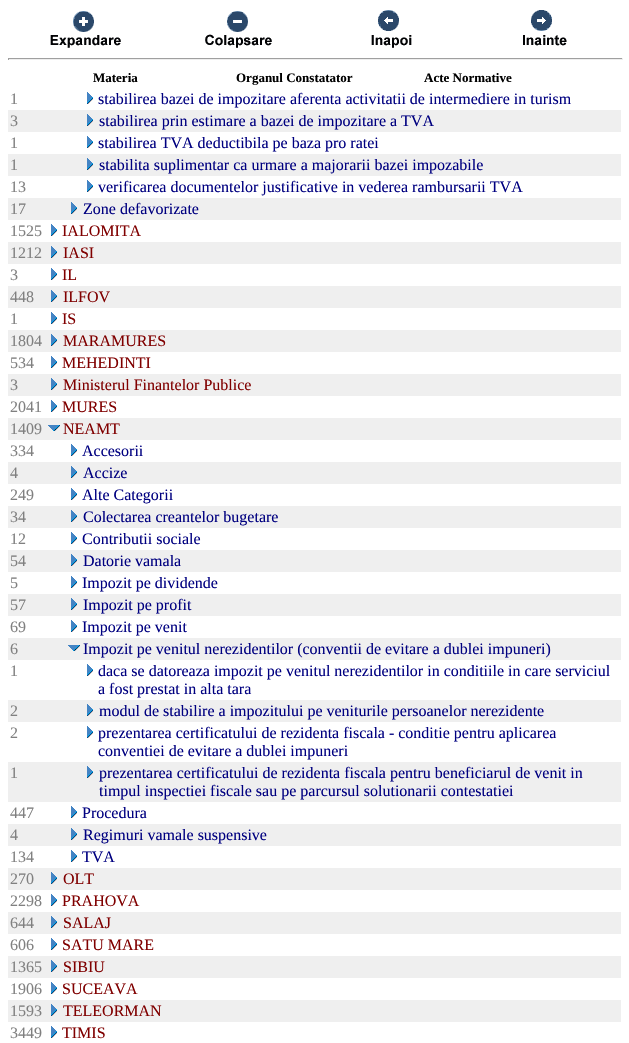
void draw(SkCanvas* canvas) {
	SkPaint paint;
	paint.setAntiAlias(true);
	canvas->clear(0xffffffff);
	canvas->drawImageRect(SkImages::DeferredFromEncodedData(SkData::MakeFromFileName("img1.png")), SkRect::MakeXYWH(50, 11, 71, 37), SkSamplingOptions());
	canvas->drawImageRect(SkImages::DeferredFromEncodedData(SkData::MakeFromFileName("img2.png")), SkRect::MakeXYWH(205, 11, 67, 37), SkSamplingOptions());
	canvas->drawImageRect(SkImages::DeferredFromEncodedData(SkData::MakeFromFileName("img3.png")), SkRect::MakeXYWH(371, 10, 41, 38), SkSamplingOptions());
	canvas->drawImageRect(SkImages::DeferredFromEncodedData(SkData::MakeFromFileName("img4.png")), SkRect::MakeXYWH(523, 10, 44, 36), SkSamplingOptions());
	paint.setColor(0xff9f9f9f);
	canvas->drawRect(SkRect::MakeXYWH(8, 58, 615, 1), paint);
	paint.setColor(0xffeeeeee);
	canvas->drawRect(SkRect::MakeXYWH(622, 58, 1, 2), paint);
	canvas->drawRect(SkRect::MakeXYWH(8, 59, 615, 1), paint);
	paint.setColor(0xff9f9f9f);
	canvas->drawRect(SkRect::MakeXYWH(8, 58, 1, 2), paint);
	SkFont f1(fontMgr->matchFamilyStyle("Liberation Serif", SkFontStyle::Bold()), 13);
	f1.setSubpixel(true);
	paint.setColor(0xff000000);
	canvas->drawString("Materia", 93, 82, f1, paint);
	canvas->drawString("Organul Constatator", 236, 82, f1, paint);
	canvas->drawString("Acte Normative", 424, 82, f1, paint);
	SkFont f2(fontMgr->matchFamilyStyle("Liberation Serif", SkFontStyle::Normal()), 16);
	f2.setSubpixel(true);
	paint.setColor(0xff808080);
	canvas->drawString("1", 10, 104, f2, paint);
	canvas->drawImageRect(SkImages::DeferredFromEncodedData(SkData::MakeFromFileName("img5.png")), SkRect::MakeXYWH(87, 92, 6, 12), SkSamplingOptions());
	paint.setColor(0xff000080);
	canvas->drawString("stabilirea bazei de impozitare aferenta activitatii de intermediere in turism", 98, 104, f2, paint);
	paint.setColor(0xffefefef);
	canvas->drawRect(SkRect::MakeXYWH(8, 110, 613, 22), paint);
	paint.setColor(0xff808080);
	canvas->drawString("3", 10, 126, f2, paint);
	canvas->drawImageRect(SkImages::DeferredFromEncodedData(SkData::MakeFromFileName("img6.png")), SkRect::MakeXYWH(87, 114, 6, 12), SkSamplingOptions());
	paint.setColor(0xff000080);
	canvas->drawString("stabilirea prin estimare a bazei de impozitare a TVA", 99, 126, f2, paint);
	paint.setColor(0xff808080);
	canvas->drawString("1", 10, 148, f2, paint);
	canvas->drawImageRect(SkImages::DeferredFromEncodedData(SkData::MakeFromFileName("img5.png")), SkRect::MakeXYWH(87, 136, 6, 12), SkSamplingOptions());
	paint.setColor(0xff000080);
	canvas->drawString("stabilirea TVA deductibila pe baza pro ratei", 98, 148, f2, paint);
	paint.setColor(0xffefefef);
	canvas->drawRect(SkRect::MakeXYWH(8, 154, 613, 22), paint);
	paint.setColor(0xff808080);
	canvas->drawString("1", 10, 170, f2, paint);
	canvas->drawImageRect(SkImages::DeferredFromEncodedData(SkData::MakeFromFileName("img6.png")), SkRect::MakeXYWH(87, 158, 6, 12), SkSamplingOptions());
	paint.setColor(0xff000080);
	canvas->drawString("stabilita suplimentar ca urmare a majorarii bazei impozabile", 99, 170, f2, paint);
	paint.setColor(0xff808080);
	canvas->drawString("13", 10, 192, f2, paint);
	canvas->drawImageRect(SkImages::DeferredFromEncodedData(SkData::MakeFromFileName("img5.png")), SkRect::MakeXYWH(87, 180, 6, 12), SkSamplingOptions());
	paint.setColor(0xff000080);
	canvas->drawString("verificarea documentelor justificative in vederea rambursarii TVA", 98, 192, f2, paint);
	paint.setColor(0xffefefef);
	canvas->drawRect(SkRect::MakeXYWH(8, 198, 613, 22), paint);
	paint.setColor(0xff808080);
	canvas->drawString("17", 10, 214, f2, paint);
	canvas->drawImageRect(SkImages::DeferredFromEncodedData(SkData::MakeFromFileName("img6.png")), SkRect::MakeXYWH(71, 202, 6, 12), SkSamplingOptions());
	paint.setColor(0xff000080);
	canvas->drawString("Zone defavorizate", 83, 214, f2, paint);
	paint.setColor(0xff808080);
	canvas->drawString("1525", 10, 236, f2, paint);
	canvas->drawImageRect(SkImages::DeferredFromEncodedData(SkData::MakeFromFileName("img5.png")), SkRect::MakeXYWH(51, 224, 6, 12), SkSamplingOptions());
	paint.setColor(0xff800000);
	canvas->drawString("IALOMITA", 62, 236, f2, paint);
	paint.setColor(0xffefefef);
	canvas->drawRect(SkRect::MakeXYWH(8, 242, 613, 22), paint);
	paint.setColor(0xff808080);
	canvas->drawString("1212", 10, 258, f2, paint);
	canvas->drawImageRect(SkImages::DeferredFromEncodedData(SkData::MakeFromFileName("img6.png")), SkRect::MakeXYWH(51, 246, 6, 12), SkSamplingOptions());
	paint.setColor(0xff800000);
	canvas->drawString("IASI", 63, 258, f2, paint);
	paint.setColor(0xff808080);
	canvas->drawString("3", 10, 280, f2, paint);
	canvas->drawImageRect(SkImages::DeferredFromEncodedData(SkData::MakeFromFileName("img5.png")), SkRect::MakeXYWH(51, 268, 6, 12), SkSamplingOptions());
	paint.setColor(0xff800000);
	canvas->drawString("IL", 62, 280, f2, paint);
	paint.setColor(0xffefefef);
	canvas->drawRect(SkRect::MakeXYWH(8, 286, 613, 22), paint);
	paint.setColor(0xff808080);
	canvas->drawString("448", 10, 302, f2, paint);
	canvas->drawImageRect(SkImages::DeferredFromEncodedData(SkData::MakeFromFileName("img6.png")), SkRect::MakeXYWH(51, 290, 6, 12), SkSamplingOptions());
	paint.setColor(0xff800000);
	canvas->drawString("ILFOV", 63, 302, f2, paint);
	paint.setColor(0xff808080);
	canvas->drawString("1", 10, 324, f2, paint);
	canvas->drawImageRect(SkImages::DeferredFromEncodedData(SkData::MakeFromFileName("img5.png")), SkRect::MakeXYWH(51, 312, 6, 12), SkSamplingOptions());
	paint.setColor(0xff800000);
	canvas->drawString("IS", 62, 324, f2, paint);
	paint.setColor(0xffefefef);
	canvas->drawRect(SkRect::MakeXYWH(8, 330, 613, 22), paint);
	paint.setColor(0xff808080);
	canvas->drawString("1804", 10, 346, f2, paint);
	canvas->drawImageRect(SkImages::DeferredFromEncodedData(SkData::MakeFromFileName("img6.png")), SkRect::MakeXYWH(51, 334, 6, 12), SkSamplingOptions());
	paint.setColor(0xff800000);
	canvas->drawString("MARAMURES", 63, 346, f2, paint);
	paint.setColor(0xff808080);
	canvas->drawString("534", 10, 368, f2, paint);
	canvas->drawImageRect(SkImages::DeferredFromEncodedData(SkData::MakeFromFileName("img5.png")), SkRect::MakeXYWH(51, 356, 6, 12), SkSamplingOptions());
	paint.setColor(0xff800000);
	canvas->drawString("MEHEDINTI", 62, 368, f2, paint);
	paint.setColor(0xffefefef);
	canvas->drawRect(SkRect::MakeXYWH(8, 374, 613, 22), paint);
	paint.setColor(0xff808080);
	canvas->drawString("3", 10, 390, f2, paint);
	canvas->drawImageRect(SkImages::DeferredFromEncodedData(SkData::MakeFromFileName("img6.png")), SkRect::MakeXYWH(51, 378, 6, 12), SkSamplingOptions());
	paint.setColor(0xff800000);
	canvas->drawString("Ministerul Finantelor Publice", 63, 390, f2, paint);
	paint.setColor(0xff808080);
	canvas->drawString("2041", 10, 412, f2, paint);
	canvas->drawImageRect(SkImages::DeferredFromEncodedData(SkData::MakeFromFileName("img5.png")), SkRect::MakeXYWH(51, 400, 6, 12), SkSamplingOptions());
	paint.setColor(0xff800000);
	canvas->drawString("MURES", 62, 412, f2, paint);
	paint.setColor(0xffefefef);
	canvas->drawRect(SkRect::MakeXYWH(8, 418, 613, 22), paint);
	paint.setColor(0xff808080);
	canvas->drawString("1409", 10, 434, f2, paint);
	canvas->drawImageRect(SkImages::DeferredFromEncodedData(SkData::MakeFromFileName("img7.png")), SkRect::MakeXYWH(48, 425, 12, 6), SkSamplingOptions());
	paint.setColor(0xff800000);
	canvas->drawString("NEAMT", 63, 434, f2, paint);
	paint.setColor(0xff808080);
	canvas->drawString("334", 10, 456, f2, paint);
	canvas->drawImageRect(SkImages::DeferredFromEncodedData(SkData::MakeFromFileName("img5.png")), SkRect::MakeXYWH(71, 444, 6, 12), SkSamplingOptions());
	paint.setColor(0xff000080);
	canvas->drawString("Accesorii", 82, 456, f2, paint);
	paint.setColor(0xffefefef);
	canvas->drawRect(SkRect::MakeXYWH(8, 462, 613, 22), paint);
	paint.setColor(0xff808080);
	canvas->drawString("4", 10, 478, f2, paint);
	canvas->drawImageRect(SkImages::DeferredFromEncodedData(SkData::MakeFromFileName("img6.png")), SkRect::MakeXYWH(71, 466, 6, 12), SkSamplingOptions());
	paint.setColor(0xff000080);
	canvas->drawString("Accize", 83, 478, f2, paint);
	paint.setColor(0xff808080);
	canvas->drawString("249", 10, 500, f2, paint);
	canvas->drawImageRect(SkImages::DeferredFromEncodedData(SkData::MakeFromFileName("img5.png")), SkRect::MakeXYWH(71, 488, 6, 12), SkSamplingOptions());
	paint.setColor(0xff000080);
	canvas->drawString("Alte Categorii", 82, 500, f2, paint);
	paint.setColor(0xffefefef);
	canvas->drawRect(SkRect::MakeXYWH(8, 506, 613, 22), paint);
	paint.setColor(0xff808080);
	canvas->drawString("34", 10, 522, f2, paint);
	canvas->drawImageRect(SkImages::DeferredFromEncodedData(SkData::MakeFromFileName("img6.png")), SkRect::MakeXYWH(71, 510, 6, 12), SkSamplingOptions());
	paint.setColor(0xff000080);
	canvas->drawString("Colectarea creantelor bugetare", 83, 522, f2, paint);
	paint.setColor(0xff808080);
	canvas->drawString("12", 10, 544, f2, paint);
	canvas->drawImageRect(SkImages::DeferredFromEncodedData(SkData::MakeFromFileName("img5.png")), SkRect::MakeXYWH(71, 532, 6, 12), SkSamplingOptions());
	paint.setColor(0xff000080);
	canvas->drawString("Contributii sociale", 82, 544, f2, paint);
	paint.setColor(0xffefefef);
	canvas->drawRect(SkRect::MakeXYWH(8, 550, 613, 22), paint);
	paint.setColor(0xff808080);
	canvas->drawString("54", 10, 566, f2, paint);
	canvas->drawImageRect(SkImages::DeferredFromEncodedData(SkData::MakeFromFileName("img6.png")), SkRect::MakeXYWH(71, 554, 6, 12), SkSamplingOptions());
	paint.setColor(0xff000080);
	canvas->drawString("Datorie vamala", 83, 566, f2, paint);
	paint.setColor(0xff808080);
	canvas->drawString("5", 10, 588, f2, paint);
	canvas->drawImageRect(SkImages::DeferredFromEncodedData(SkData::MakeFromFileName("img5.png")), SkRect::MakeXYWH(71, 576, 6, 12), SkSamplingOptions());
	paint.setColor(0xff000080);
	canvas->drawString("Impozit pe dividende", 82, 588, f2, paint);
	paint.setColor(0xffefefef);
	canvas->drawRect(SkRect::MakeXYWH(8, 594, 613, 22), paint);
	paint.setColor(0xff808080);
	canvas->drawString("57", 10, 610, f2, paint);
	canvas->drawImageRect(SkImages::DeferredFromEncodedData(SkData::MakeFromFileName("img6.png")), SkRect::MakeXYWH(71, 598, 6, 12), SkSamplingOptions());
	paint.setColor(0xff000080);
	canvas->drawString("Impozit pe profit", 83, 610, f2, paint);
	paint.setColor(0xff808080);
	canvas->drawString("69", 10, 632, f2, paint);
	canvas->drawImageRect(SkImages::DeferredFromEncodedData(SkData::MakeFromFileName("img5.png")), SkRect::MakeXYWH(71, 620, 6, 12), SkSamplingOptions());
	paint.setColor(0xff000080);
	canvas->drawString("Impozit pe venit", 82, 632, f2, paint);
	paint.setColor(0xffefefef);
	canvas->drawRect(SkRect::MakeXYWH(8, 638, 613, 22), paint);
	paint.setColor(0xff808080);
	canvas->drawString("6", 10, 654, f2, paint);
	canvas->drawImageRect(SkImages::DeferredFromEncodedData(SkData::MakeFromFileName("img7.png")), SkRect::MakeXYWH(68, 645, 12, 6), SkSamplingOptions());
	paint.setColor(0xff000080);
	canvas->drawString("Impozit pe venitul nerezidentilor (conventii de evitare a dublei impuneri)", 83, 654, f2, paint);
	paint.setColor(0xff808080);
	canvas->drawString("1", 10, 676, f2, paint);
	canvas->drawImageRect(SkImages::DeferredFromEncodedData(SkData::MakeFromFileName("img5.png")), SkRect::MakeXYWH(87, 664, 6, 12), SkSamplingOptions());
	paint.setColor(0xff000080);
	canvas->drawString("daca se datoreaza impozit pe venitul nerezidentilor in conditiile in care serviciul", 98, 676, f2, paint);
	canvas->drawString("a fost prestat in alta tara", 98, 694, f2, paint);
	paint.setColor(0xffefefef);
	canvas->drawRect(SkRect::MakeXYWH(8, 700, 613, 22), paint);
	paint.setColor(0xff808080);
	canvas->drawString("2", 10, 716, f2, paint);
	canvas->drawImageRect(SkImages::DeferredFromEncodedData(SkData::MakeFromFileName("img6.png")), SkRect::MakeXYWH(87, 704, 6, 12), SkSamplingOptions());
	paint.setColor(0xff000080);
	canvas->drawString("modul de stabilire a impozitului pe veniturile persoanelor nerezidente", 99, 716, f2, paint);
	paint.setColor(0xff808080);
	canvas->drawString("2", 10, 738, f2, paint);
	canvas->drawImageRect(SkImages::DeferredFromEncodedData(SkData::MakeFromFileName("img5.png")), SkRect::MakeXYWH(87, 726, 6, 12), SkSamplingOptions());
	paint.setColor(0xff000080);
	canvas->drawString("prezentarea certificatului de rezidenta fiscala - conditie pentru aplicarea", 98, 738, f2, paint);
	canvas->drawString("conventiei de evitare a dublei impuneri", 98, 756, f2, paint);
	paint.setColor(0xffefefef);
	canvas->drawRect(SkRect::MakeXYWH(8, 762, 613, 40), paint);
	paint.setColor(0xff808080);
	canvas->drawString("1", 10, 778, f2, paint);
	canvas->drawImageRect(SkImages::DeferredFromEncodedData(SkData::MakeFromFileName("img6.png")), SkRect::MakeXYWH(87, 766, 6, 12), SkSamplingOptions());
	paint.setColor(0xff000080);
	canvas->drawString("prezentarea certificatului de rezidenta fiscala pentru beneficiarul de venit in", 99, 778, f2, paint);
	canvas->drawString("timpul inspectiei fiscale sau pe parcursul solutionarii contestatiei", 99, 796, f2, paint);
	paint.setColor(0xff808080);
	canvas->drawString("447", 10, 818, f2, paint);
	canvas->drawImageRect(SkImages::DeferredFromEncodedData(SkData::MakeFromFileName("img5.png")), SkRect::MakeXYWH(71, 806, 6, 12), SkSamplingOptions());
	paint.setColor(0xff000080);
	canvas->drawString("Procedura", 82, 818, f2, paint);
	paint.setColor(0xffefefef);
	canvas->drawRect(SkRect::MakeXYWH(8, 824, 613, 22), paint);
	paint.setColor(0xff808080);
	canvas->drawString("4", 10, 840, f2, paint);
	canvas->drawImageRect(SkImages::DeferredFromEncodedData(SkData::MakeFromFileName("img6.png")), SkRect::MakeXYWH(71, 828, 6, 12), SkSamplingOptions());
	paint.setColor(0xff000080);
	canvas->drawString("Regimuri vamale suspensive", 83, 840, f2, paint);
	paint.setColor(0xff808080);
	canvas->drawString("134", 10, 862, f2, paint);
	canvas->drawImageRect(SkImages::DeferredFromEncodedData(SkData::MakeFromFileName("img5.png")), SkRect::MakeXYWH(71, 850, 6, 12), SkSamplingOptions());
	paint.setColor(0xff000080);
	canvas->drawString("TVA", 82, 862, f2, paint);
	paint.setColor(0xffefefef);
	canvas->drawRect(SkRect::MakeXYWH(8, 868, 613, 22), paint);
	paint.setColor(0xff808080);
	canvas->drawString("270", 10, 884, f2, paint);
	canvas->drawImageRect(SkImages::DeferredFromEncodedData(SkData::MakeFromFileName("img6.png")), SkRect::MakeXYWH(51, 872, 6, 12), SkSamplingOptions());
	paint.setColor(0xff800000);
	canvas->drawString("OLT", 63, 884, f2, paint);
	paint.setColor(0xff808080);
	canvas->drawString("2298", 10, 906, f2, paint);
	canvas->drawImageRect(SkImages::DeferredFromEncodedData(SkData::MakeFromFileName("img5.png")), SkRect::MakeXYWH(51, 894, 6, 12), SkSamplingOptions());
	paint.setColor(0xff800000);
	canvas->drawString("PRAHOVA", 62, 906, f2, paint);
	paint.setColor(0xffefefef);
	canvas->drawRect(SkRect::MakeXYWH(8, 912, 613, 22), paint);
	paint.setColor(0xff808080);
	canvas->drawString("644", 10, 928, f2, paint);
	canvas->drawImageRect(SkImages::DeferredFromEncodedData(SkData::MakeFromFileName("img6.png")), SkRect::MakeXYWH(51, 916, 6, 12), SkSamplingOptions());
	paint.setColor(0xff800000);
	canvas->drawString("SALAJ", 63, 928, f2, paint);
	paint.setColor(0xff808080);
	canvas->drawString("606", 10, 950, f2, paint);
	canvas->drawImageRect(SkImages::DeferredFromEncodedData(SkData::MakeFromFileName("img5.png")), SkRect::MakeXYWH(51, 938, 6, 12), SkSamplingOptions());
	paint.setColor(0xff800000);
	canvas->drawString("SATU MARE", 62, 950, f2, paint);
	paint.setColor(0xffefefef);
	canvas->drawRect(SkRect::MakeXYWH(8, 956, 613, 22), paint);
	paint.setColor(0xff808080);
	canvas->drawString("1365", 10, 972, f2, paint);
	canvas->drawImageRect(SkImages::DeferredFromEncodedData(SkData::MakeFromFileName("img6.png")), SkRect::MakeXYWH(51, 960, 6, 12), SkSamplingOptions());
	paint.setColor(0xff800000);
	canvas->drawString("SIBIU", 63, 972, f2, paint);
	paint.setColor(0xff808080);
	canvas->drawString("1906", 10, 994, f2, paint);
	canvas->drawImageRect(SkImages::DeferredFromEncodedData(SkData::MakeFromFileName("img5.png")), SkRect::MakeXYWH(51, 982, 6, 12), SkSamplingOptions());
	paint.setColor(0xff800000);
	canvas->drawString("SUCEAVA", 62, 994, f2, paint);
	paint.setColor(0xffefefef);
	canvas->drawRect(SkRect::MakeXYWH(8, 1000, 613, 22), paint);
	paint.setColor(0xff808080);
	canvas->drawString("1593", 10, 1016, f2, paint);
	canvas->drawImageRect(SkImages::DeferredFromEncodedData(SkData::MakeFromFileName("img6.png")), SkRect::MakeXYWH(51, 1004, 6, 12), SkSamplingOptions());
	paint.setColor(0xff800000);
	canvas->drawString("TELEORMAN", 63, 1016, f2, paint);
	paint.setColor(0xff808080);
	canvas->drawString("3449", 10, 1038, f2, paint);
	canvas->drawImageRect(SkImages::DeferredFromEncodedData(SkData::MakeFromFileName("img5.png")), SkRect::MakeXYWH(51, 1026, 6, 12), SkSamplingOptions());
	paint.setColor(0xff800000);
	canvas->drawString("TIMIS", 62, 1038, f2, paint);
}
